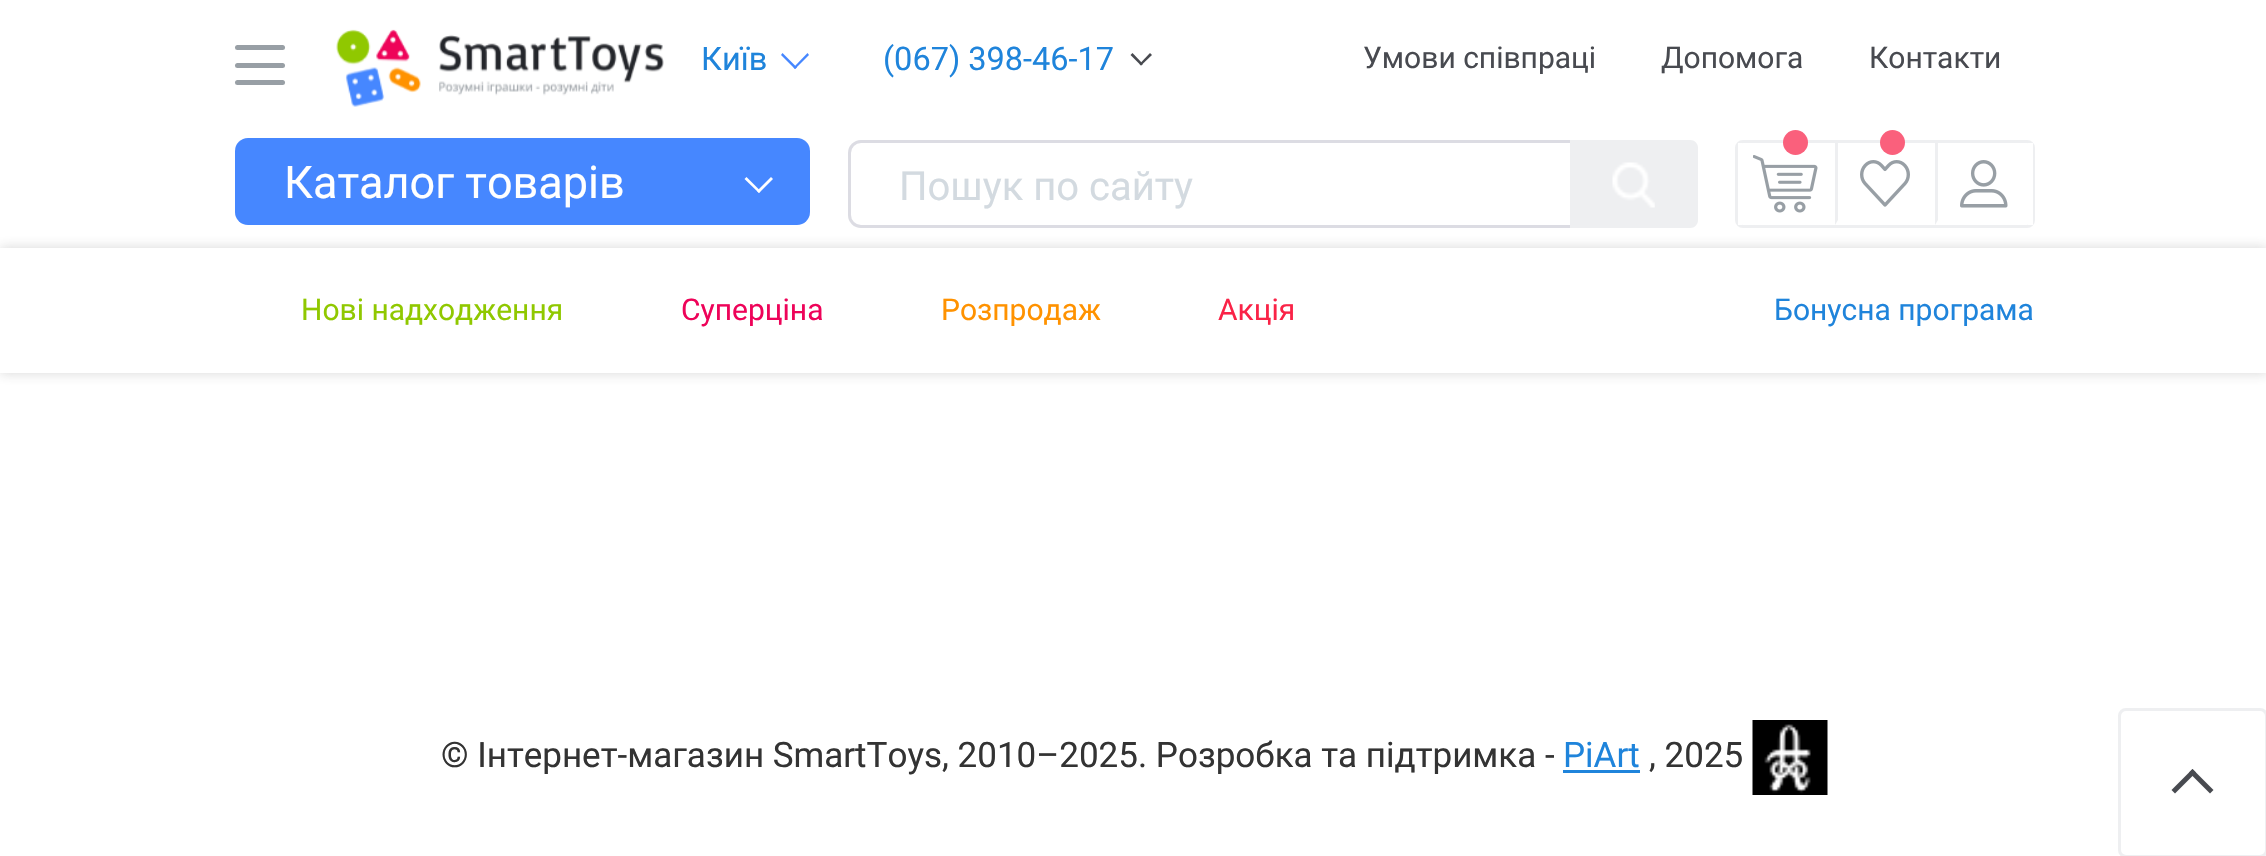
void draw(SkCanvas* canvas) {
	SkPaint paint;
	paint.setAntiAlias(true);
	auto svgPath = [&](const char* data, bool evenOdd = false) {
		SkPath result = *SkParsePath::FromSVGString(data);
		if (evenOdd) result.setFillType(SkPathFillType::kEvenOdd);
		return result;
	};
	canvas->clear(0xffffffff);
	paint.setColor(0xff989fa5);
	canvas->drawRoundRect(SkRect::MakeXYWH(235, 45, 50, 5), 2.5, 2.5, paint);
	canvas->drawRoundRect(SkRect::MakeXYWH(235, 63, 50, 5), 2.5, 2.5, paint);
	canvas->drawRoundRect(SkRect::MakeXYWH(235, 80, 50, 5), 2.5, 2.5, paint);
	SkFont f1(fontMgr->matchFamilyStyle("Roboto", SkFontStyle::Normal()), 32.5);
	f1.setSubpixel(true);
	paint.setColor(0xff1f84db);
	canvas->drawString("Київ", 701, 70, f1, paint);
	paint.setColor(0xff4687ff);
	canvas->drawPath(svgPath("M793.5 67.5L807.5 53L809 55L795 69Z"), paint);
	canvas->drawPath(svgPath("M781 55L782.5 53L797 67.5L795 69Z"), paint);
	paint.setColor(0xff1f84db);
	canvas->drawString("(067) 398-46-17", 883, 70, f1, paint);
	paint.setColor(0xff484a50);
	canvas->drawPath(svgPath("M1139.5 64L1150 53L1152 55L1141 65.5Z"), paint);
	canvas->drawPath(svgPath("M1130.5 55L1132.5 53L1143 64L1141 65.5Z"), paint);
	SkFont f2(fontMgr->matchFamilyStyle("Roboto", SkFontStyle::Normal()), 30);
	f2.setSubpixel(true);
	canvas->drawString("Умови співпраці", 1363, 68, f2, paint);
	canvas->drawString("Допомога", 1661, 68, f2, paint);
	canvas->drawString("Контакти", 1869, 68, f2, paint);
	canvas->save();
	canvas->clipPath(svgPath("M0 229H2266V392H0ZM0 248H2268V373H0Z", true), true);
	paint.setColor(0x33323232);
	paint.setMaskFilter(SkMaskFilter::MakeBlur(kNormal_SkBlurStyle, 6));
	canvas->drawRect(SkRect::MakeXYWH(0, 248, 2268, 125), paint);
	paint.setMaskFilter(nullptr);
	canvas->restore();
	paint.setColor(0xff4687ff);
	canvas->drawRoundRect(SkRect::MakeXYWH(235, 138, 575, 87), 13, 13, paint);
	SkFont f3(fontMgr->matchFamilyStyle("Roboto", SkFontStyle::Normal()), 45);
	f3.setSubpixel(true);
	paint.setColor(0xffffffff);
	canvas->drawString("Каталог товарів", 284, 198, f3, paint);
	canvas->drawPath(svgPath("M771 177L773 179L759 193L757 191Z"), paint);
	canvas->drawPath(svgPath("M746.5 177L760.5 191L759 193L744.5 179Z"), paint);
	paint.setColor(0xff90c800);
	canvas->drawString("Нові надходження", 301, 320, f2, paint);
	paint.setColor(0xffee0359);
	canvas->drawString("Суперціна", 681, 320, f2, paint);
	paint.setColor(0xffff9200);
	canvas->drawString("Розпродаж", 941, 320, f2, paint);
	paint.setColor(0xfffa2347);
	canvas->drawString("Акція", 1218, 320, f2, paint);
	paint.setColor(0xff1f84db);
	canvas->drawString("Бонусна програма", 1774, 320, f2, paint);
	canvas->drawImageRect(SkImages::DeferredFromEncodedData(SkData::MakeFromFileName("img1.png")), SkRect::MakeXYWH(336, 29, 328, 78), SkSamplingOptions());
	paint.setStroke(true);
	paint.setStrokeWidth(3);
	paint.setColor(0xffdcdce3);
	canvas->drawRoundRect(SkRect::MakeXYWH(849.5, 141.5, 847, 85), 11.5, 11.5, paint);
	SkFont f4(fontMgr->matchFamilyStyle("Roboto", SkFontStyle::Normal()), 40);
	f4.setSubpixel(true);
	paint.setStroke(false);
	paint.setColor(0xffd3dae0);
	canvas->drawString("Пошук по сайту", 899, 200, f4, paint);
	paint.setColor(0xffeeeff1);
	canvas->drawPath(svgPath("M1570 140H1690C1694.5 140 1698 143.5 1698 148V220C1698 224.5 1694.5 228 1690 228H1570Z"), paint);
	canvas->drawImageRect(SkImages::DeferredFromEncodedData(SkData::MakeFromFileName("img2.png")), SkRect::MakeXYWH(1612, 162, 43, 46), SkSamplingOptions());
	paint.setStroke(true);
	canvas->drawRoundRect(SkRect::MakeXYWH(1736.5, 141.5, 297, 85), 6.5, 6.5, paint);
	paint.setStroke(false);
	paint.setColor(0xffffffff);
	canvas->drawRect(SkRect::MakeXYWH(1738, 143, 4, 82), paint);
	paint.setColor(0xfffa607c);
	canvas->drawCircle(1795.5, 142.5, 12.5, paint);
	canvas->drawImageRect(SkImages::DeferredFromEncodedData(SkData::MakeFromFileName("img3.png")), SkRect::MakeXYWH(1753, 155, 65, 58), SkSamplingOptions());
	paint.setColor(0xffeeeff1);
	canvas->drawPath(svgPath("M1835 225V142H1838V220Z"), paint);
	paint.setColor(0xfffa607c);
	canvas->drawCircle(1892.5, 142.5, 12.5, paint);
	canvas->drawImageRect(SkImages::DeferredFromEncodedData(SkData::MakeFromFileName("img4.png")), SkRect::MakeXYWH(1860, 160, 50, 47), SkSamplingOptions());
	paint.setColor(0xffffffff);
	canvas->drawRect(SkRect::MakeXYWH(2028, 143, 5, 82), paint);
	paint.setColor(0xffeeeff1);
	canvas->drawPath(svgPath("M1935 225V142H1938V220Z"), paint);
	canvas->drawImageRect(SkImages::DeferredFromEncodedData(SkData::MakeFromFileName("img5.png")), SkRect::MakeXYWH(1960, 160, 48, 48), SkSamplingOptions());
	SkFont f5(fontMgr->matchFamilyStyle("Roboto", SkFontStyle::Normal()), 35);
	f5.setSubpixel(true);
	paint.setColor(0xff333333);
	canvas->drawString("© Інтернет-магазин SmartToys, 2010–2025. Розробка та підтримка -", 441, 767, f5, paint);
	paint.setColor(0xff1f84db);
	canvas->drawString("PiArt", 1563, 767, f5, paint);
	canvas->drawRect(SkRect::MakeXYWH(1563, 770, 77, 3), paint);
	paint.setColor(0xff333333);
	canvas->drawString(", 2025", 1649, 767, f5, paint);
	canvas->drawImageRect(SkImages::DeferredFromEncodedData(SkData::MakeFromFileName("img6.png")), SkRect::MakeXYWH(1752, 720, 76, 75), SkSamplingOptions());
	paint.setStroke(true);
	paint.setColor(0xffeeeff1);
	canvas->drawRoundRect(SkRect::MakeXYWH(2119.5, 709.5, 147, 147), 6.5, 6.5, paint);
	paint.setStroke(false);
	paint.setColor(0xff484a50);
	canvas->drawPath(svgPath("M2196 772.5L2175 793.5L2171.5 790L2192.5 769Z"), paint);
	canvas->drawPath(svgPath("M2213.5 790L2210 793.5L2189 772.5L2192.5 769Z"), paint);
}
